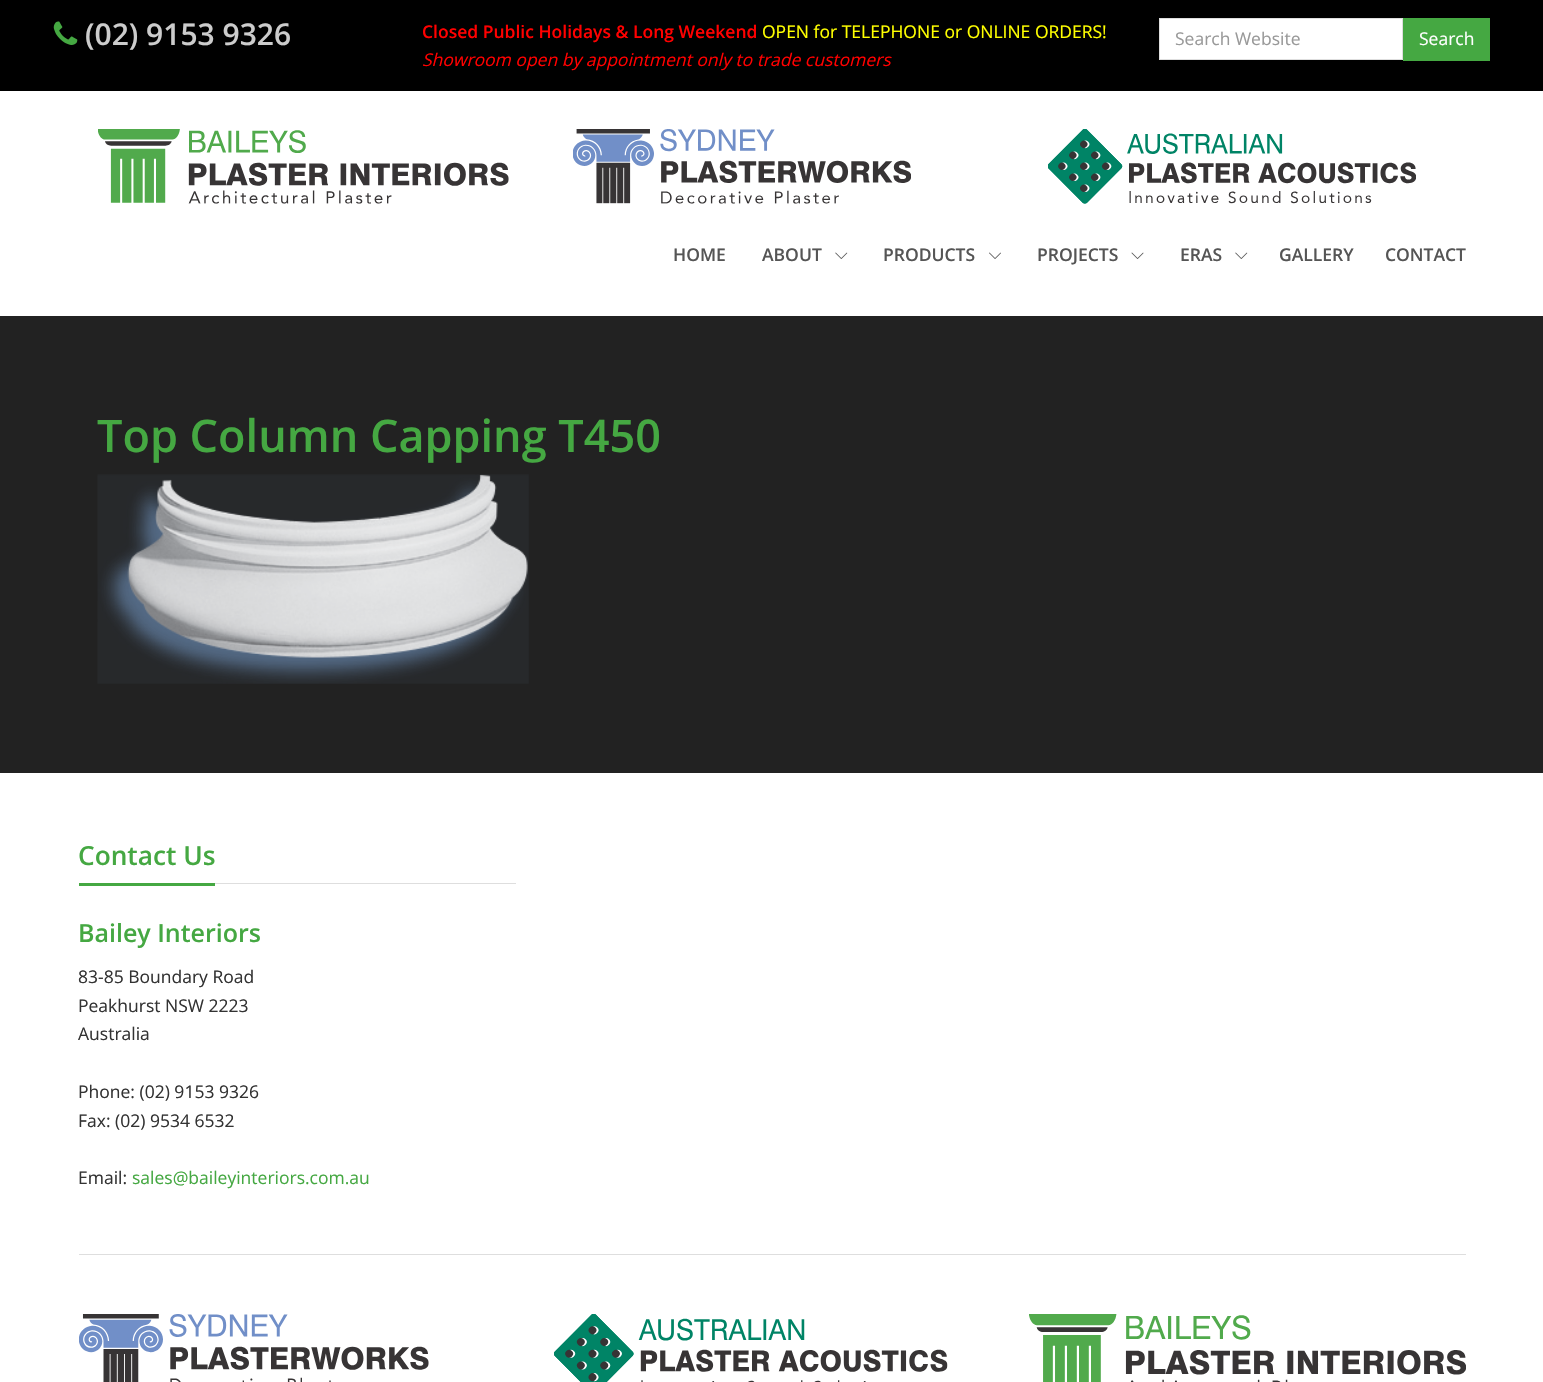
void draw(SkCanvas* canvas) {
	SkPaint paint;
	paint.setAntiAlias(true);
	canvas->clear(0xff222222);
	paint.setColor(0xff000000);
	canvas->drawRect(SkRect::MakeXYWH(0, 0, 1543, 91), paint);
	canvas->drawImageRect(SkImages::DeferredFromEncodedData(SkData::MakeFromFileName("img1.png")), SkRect::MakeXYWH(53, 21, 25, 24), SkSamplingOptions());
	SkFont f1(fontMgr->matchFamilyStyle("Open Sans", SkFontStyle(600, SkFontStyle::kNormal_Width, SkFontStyle::kUpright_Slant)), 30);
	f1.setSubpixel(true);
	paint.setColor(0xffcccccc);
	canvas->drawString("(02) 9153 9326", 85, 45, f1, paint);
	SkFont f2(fontMgr->matchFamilyStyle("Open Sans", SkFontStyle(600, SkFontStyle::kNormal_Width, SkFontStyle::kUpright_Slant)), 17.5);
	f2.setSubpixel(true);
	paint.setColor(0xffff0000);
	canvas->drawString("Closed Public Holidays & Long Weekend", 422, 38, f2, paint);
	SkFont f3(fontMgr->matchFamilyStyle("Open Sans", SkFontStyle::Normal()), 17.5);
	f3.setSubpixel(true);
	paint.setColor(0xffffff00);
	canvas->drawString("OPEN for TELEPHONE or ONLINE ORDERS!", 762, 38, f3, paint);
	SkFont f4(fontMgr->matchFamilyStyle("Open Sans", SkFontStyle::Italic()), 17.5);
	f4.setSubpixel(true);
	paint.setColor(0xffff0000);
	canvas->drawString("Showroom open by appointment only to trade customers", 422, 66, f4, paint);
	paint.setColor(0xffffffff);
	canvas->drawRect(SkRect::MakeXYWH(1159.5, 18.5, 243, 41), paint);
	paint.setStroke(true);
	paint.setStrokeWidth(1);
	paint.setColor(0xffdedede);
	canvas->drawRect(SkRect::MakeXYWH(1159.5, 18.5, 243, 41), paint);
	paint.setStroke(false);
	paint.setColor(0xff999999);
	canvas->drawString("Search Website", 1175, 45, f3, paint);
	paint.setColor(0xff45a842);
	canvas->drawRect(SkRect::MakeXYWH(1403, 18, 87, 43), paint);
	paint.setColor(0xffffffff);
	canvas->drawString("Search", 1419, 45, f3, paint);
	canvas->drawRect(SkRect::MakeXYWH(0, 91, 1543, 225), paint);
	canvas->drawImageRect(SkImages::DeferredFromEncodedData(SkData::MakeFromFileName("img2.png")), SkRect::MakeXYWH(98, 129, 411, 75), SkSamplingOptions());
	canvas->drawImageRect(SkImages::DeferredFromEncodedData(SkData::MakeFromFileName("img3.png")), SkRect::MakeXYWH(573, 129, 338, 75), SkSamplingOptions());
	canvas->drawImageRect(SkImages::DeferredFromEncodedData(SkData::MakeFromFileName("img4.png")), SkRect::MakeXYWH(1048, 129, 368, 75), SkSamplingOptions());
	paint.setColor(0xff555555);
	canvas->drawString("HOME", 673, 261, f2, paint);
	canvas->drawString("ABOUT", 762, 261, f2, paint);
	canvas->drawImageRect(SkImages::DeferredFromEncodedData(SkData::MakeFromFileName("img5.png")), SkRect::MakeXYWH(835, 252, 13, 7), SkSamplingOptions());
	canvas->drawString("PRODUCTS", 883, 261, f2, paint);
	canvas->drawImageRect(SkImages::DeferredFromEncodedData(SkData::MakeFromFileName("img6.png")), SkRect::MakeXYWH(989, 252, 12, 7), SkSamplingOptions());
	canvas->drawString("PROJECTS", 1037, 261, f2, paint);
	canvas->drawImageRect(SkImages::DeferredFromEncodedData(SkData::MakeFromFileName("img7.png")), SkRect::MakeXYWH(1131, 252, 13, 7), SkSamplingOptions());
	canvas->drawString("ERAS", 1180, 261, f2, paint);
	canvas->drawImageRect(SkImages::DeferredFromEncodedData(SkData::MakeFromFileName("img5.png")), SkRect::MakeXYWH(1235, 252, 13, 7), SkSamplingOptions());
	canvas->drawString("GALLERY", 1279, 261, f2, paint);
	canvas->drawString("CONTACT", 1385, 261, f2, paint);
	SkFont f5(fontMgr->matchFamilyStyle("Open Sans", SkFontStyle(600, SkFontStyle::kNormal_Width, SkFontStyle::kUpright_Slant)), 45);
	f5.setSubpixel(true);
	paint.setColor(0xff45a842);
	canvas->drawString("Top Column Capping T450", 97, 452, f5, paint);
	canvas->drawImageRect(SkImages::DeferredFromEncodedData(SkData::MakeFromFileName("img8.png")), SkRect::MakeXYWH(97, 474, 432, 210), SkSamplingOptions());
	paint.setColor(0xffffffff);
	canvas->drawRect(SkRect::MakeXYWH(0, 773, 1543, 609), paint);
	paint.setColor(0xffdedede);
	canvas->drawRect(SkRect::MakeXYWH(215, 883, 301, 1), paint);
	paint.setColor(0xff45a842);
	canvas->drawRect(SkRect::MakeXYWH(79, 883, 136, 3), paint);
	SkFont f6(fontMgr->matchFamilyStyle("Open Sans", SkFontStyle(600, SkFontStyle::kNormal_Width, SkFontStyle::kUpright_Slant)), 26.25);
	f6.setSubpixel(true);
	canvas->drawString("Contact Us", 78, 865, f6, paint);
	SkFont f7(fontMgr->matchFamilyStyle("Open Sans", SkFontStyle(600, SkFontStyle::kNormal_Width, SkFontStyle::kUpright_Slant)), 25);
	f7.setSubpixel(true);
	canvas->drawString("Bailey Interiors", 78, 942, f7, paint);
	paint.setColor(0xff333333);
	canvas->drawString("83-85 Boundary Road", 78, 983, f3, paint);
	canvas->drawString("Peakhurst NSW 2223", 78, 1012, f3, paint);
	canvas->drawString("Australia", 78, 1040, f3, paint);
	canvas->drawString("Phone: (02) 9153 9326", 78, 1098, f3, paint);
	canvas->drawString("Fax: (02) 9534 6532", 78, 1127, f3, paint);
	canvas->drawString("Email:", 78, 1184, f3, paint);
	paint.setColor(0xff45a842);
	canvas->drawString("sales@baileyinteriors.com.au", 132, 1184, f3, paint);
	paint.setColor(0xffdedede);
	canvas->drawRect(SkRect::MakeXYWH(79, 1254, 1387, 1), paint);
	canvas->drawImageRect(SkImages::DeferredFromEncodedData(SkData::MakeFromFileName("img9.png")), SkRect::MakeXYWH(79, 1314, 350, 68), SkSamplingOptions());
	canvas->drawImageRect(SkImages::DeferredFromEncodedData(SkData::MakeFromFileName("img10.png")), SkRect::MakeXYWH(554, 1314, 394, 68), SkSamplingOptions());
	canvas->drawImageRect(SkImages::DeferredFromEncodedData(SkData::MakeFromFileName("img11.png")), SkRect::MakeXYWH(1029, 1314, 437, 68), SkSamplingOptions());
}
